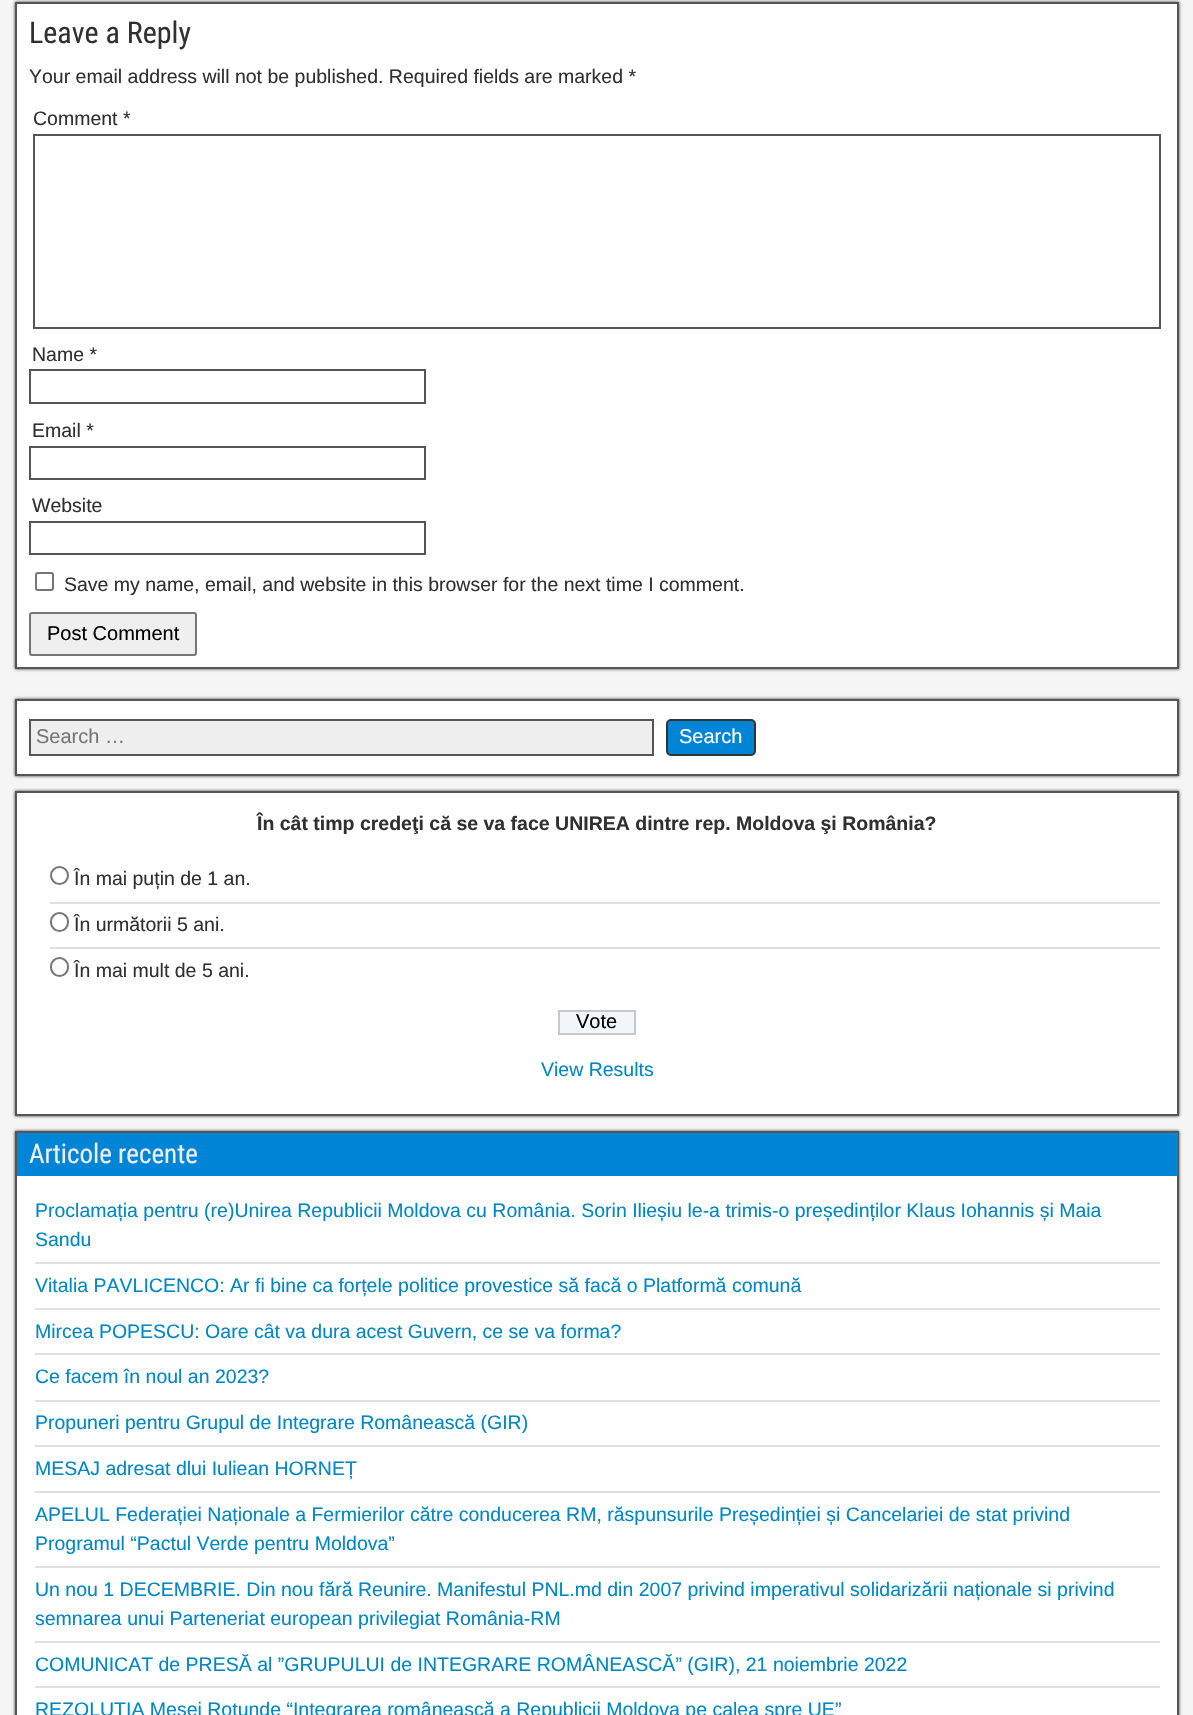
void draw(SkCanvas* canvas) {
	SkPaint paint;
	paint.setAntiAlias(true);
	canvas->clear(0xfff5f5f5);
	paint.setColor(0xff333333);
	paint.setMaskFilter(SkMaskFilter::MakeBlur(kNormal_SkBlurStyle, 1.5));
	canvas->drawRect(SkRect::MakeXYWH(15, 2, 1164, 667), paint);
	paint.setMaskFilter(nullptr);
	paint.setColor(0xffffffff);
	canvas->drawRect(SkRect::MakeXYWH(16, 3, 1162, 665), paint);
	paint.setStroke(true);
	paint.setStrokeWidth(2);
	paint.setColor(0xff555555);
	canvas->drawRect(SkRect::MakeXYWH(16, 3, 1162, 665), paint);
	SkFont f1(fontMgr->matchFamilyStyle("Roboto Condensed", SkFontStyle::Normal()), 30);
	f1.setSubpixel(true);
	paint.setStroke(false);
	paint.setColor(0xff303030);
	canvas->drawString("Leave a Reply", 29, 43, f1, paint);
	SkFont f2(fontMgr->matchFamilyStyle("Liberation Sans", SkFontStyle::Normal()), 19.5);
	f2.setSubpixel(true);
	canvas->drawString("Your email address will not be published. Required fields are marked *", 29, 83, f2, paint);
	canvas->drawString("Comment *", 33, 125, f2, paint);
	paint.setStroke(true);
	paint.setColor(0xff555555);
	canvas->drawRect(SkRect::MakeXYWH(34, 135, 1126, 193), paint);
	paint.setStroke(false);
	paint.setColor(0xff303030);
	canvas->drawString("Name *", 32, 361, f2, paint);
	paint.setStroke(true);
	paint.setColor(0xff555555);
	canvas->drawRect(SkRect::MakeXYWH(30, 370, 395, 33), paint);
	paint.setStroke(false);
	paint.setColor(0xff303030);
	canvas->drawString("Email *", 32, 437, f2, paint);
	paint.setStroke(true);
	paint.setColor(0xff555555);
	canvas->drawRect(SkRect::MakeXYWH(30, 447, 395, 32), paint);
	paint.setStroke(false);
	paint.setColor(0xff303030);
	canvas->drawString("Website", 32, 512, f2, paint);
	paint.setStroke(true);
	paint.setColor(0xff555555);
	canvas->drawRect(SkRect::MakeXYWH(30, 522, 395, 32), paint);
	paint.setColor(0xff767676);
	canvas->drawRoundRect(SkRect::MakeXYWH(36, 573, 17, 17), 2, 2, paint);
	paint.setStroke(false);
	paint.setColor(0xff303030);
	canvas->drawString("Save my name, email, and website in this browser for the next time I comment.", 64, 591, f2, paint);
	paint.setColor(0xffefefef);
	canvas->drawRoundRect(SkRect::MakeXYWH(30, 613, 166, 42), 2, 2, paint);
	paint.setStroke(true);
	paint.setColor(0xff767676);
	canvas->drawRoundRect(SkRect::MakeXYWH(30, 613, 166, 42), 2, 2, paint);
	SkFont f3(fontMgr->matchFamilyStyle("Liberation Sans", SkFontStyle::Normal()), 20);
	f3.setSubpixel(true);
	paint.setStroke(false);
	paint.setColor(0xff000000);
	canvas->drawString("Post Comment", 47, 640, f3, paint);
	paint.setColor(0xff333333);
	paint.setMaskFilter(SkMaskFilter::MakeBlur(kNormal_SkBlurStyle, 1.5));
	canvas->drawRect(SkRect::MakeXYWH(15, 699, 1164, 77), paint);
	paint.setMaskFilter(nullptr);
	paint.setColor(0xffffffff);
	canvas->drawRect(SkRect::MakeXYWH(16, 700, 1162, 75), paint);
	paint.setStroke(true);
	paint.setColor(0xff555555);
	canvas->drawRect(SkRect::MakeXYWH(16, 700, 1162, 75), paint);
	paint.setStroke(false);
	paint.setColor(0xffeeeeee);
	canvas->drawRect(SkRect::MakeXYWH(30, 720, 623, 35), paint);
	paint.setStroke(true);
	paint.setColor(0xff555555);
	canvas->drawRect(SkRect::MakeXYWH(30, 720, 623, 35), paint);
	paint.setStroke(false);
	paint.setColor(0xff757575);
	canvas->drawString("Search …", 36, 743, f3, paint);
	paint.setColor(0xff0084d6);
	canvas->drawRoundRect(SkRect::MakeXYWH(667, 720, 88, 35), 4, 4, paint);
	paint.setStroke(true);
	paint.setColor(0xff333333);
	canvas->drawRoundRect(SkRect::MakeXYWH(667, 720, 88, 35), 4, 4, paint);
	paint.setStroke(false);
	paint.setColor(0xffffffff);
	canvas->drawString("Search", 679, 743, f3, paint);
	paint.setColor(0xff333333);
	paint.setMaskFilter(SkMaskFilter::MakeBlur(kNormal_SkBlurStyle, 1.5));
	canvas->drawRect(SkRect::MakeXYWH(15, 791, 1164, 325), paint);
	paint.setMaskFilter(nullptr);
	paint.setColor(0xffffffff);
	canvas->drawRect(SkRect::MakeXYWH(16, 792, 1162, 323), paint);
	paint.setStroke(true);
	paint.setColor(0xff555555);
	canvas->drawRect(SkRect::MakeXYWH(16, 792, 1162, 323), paint);
	SkFont f4(fontMgr->matchFamilyStyle("Liberation Sans", SkFontStyle::Bold()), 19.5);
	f4.setSubpixel(true);
	paint.setStroke(false);
	paint.setColor(0xff303030);
	canvas->drawString("În cât timp credeţi că se va face UNIREA dintre rep. Moldova şi România?", 257, 830, f4, paint);
	paint.setColor(0xffe0e0e0);
	canvas->drawRect(SkRect::MakeXYWH(50, 902, 1110, 2), paint);
	paint.setStroke(true);
	paint.setColor(0xff767676);
	canvas->drawCircle(59.5, 875.5, 8.5, paint);
	paint.setStroke(false);
	paint.setColor(0xff303030);
	canvas->drawString("În mai puțin de 1 an.", 74, 885, f2, paint);
	paint.setColor(0xffe0e0e0);
	canvas->drawRect(SkRect::MakeXYWH(50, 947, 1110, 2), paint);
	paint.setStroke(true);
	paint.setColor(0xff767676);
	canvas->drawRoundRect(SkRect::MakeXYWH(51, 913, 17, 18), 8.5, 8.5, paint);
	paint.setStroke(false);
	paint.setColor(0xff303030);
	canvas->drawString("În următorii 5 ani.", 74, 931, f2, paint);
	paint.setStroke(true);
	paint.setColor(0xff767676);
	canvas->drawRoundRect(SkRect::MakeXYWH(51, 958, 17, 18), 8.5, 8.5, paint);
	paint.setStroke(false);
	paint.setColor(0xff303030);
	canvas->drawString("În mai mult de 5 ani.", 74, 977, f2, paint);
	paint.setColor(0xfff3f6f8);
	canvas->drawRect(SkRect::MakeXYWH(559, 1011, 76, 23), paint);
	paint.setStroke(true);
	paint.setColor(0xffc8c8c8);
	canvas->drawRect(SkRect::MakeXYWH(559, 1011, 76, 23), paint);
	paint.setStroke(false);
	paint.setColor(0xff000000);
	canvas->drawString("Vote", 576, 1028, f3, paint);
	paint.setColor(0xff0086c4);
	canvas->drawString("View Results", 541, 1076, f2, paint);
	paint.setColor(0xff333333);
	paint.setMaskFilter(SkMaskFilter::MakeBlur(kNormal_SkBlurStyle, 1.5));
	canvas->drawRect(SkRect::MakeXYWH(15, 1131, 1164, 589), paint);
	paint.setMaskFilter(nullptr);
	paint.setColor(0xffffffff);
	canvas->drawRect(SkRect::MakeXYWH(17, 1176, 1160, 539), paint);
	paint.setStroke(true);
	paint.setColor(0xff555555);
	canvas->drawRect(SkRect::MakeXYWH(16, 1132, 1162, 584), paint);
	paint.setStroke(false);
	paint.setColor(0xff0084d6);
	canvas->drawRect(SkRect::MakeXYWH(17, 1133, 1161, 43), paint);
	SkFont f5(fontMgr->matchFamilyStyle("Roboto Condensed", SkFontStyle::Normal()), 27);
	f5.setSubpixel(true);
	paint.setColor(0xffeeeeee);
	canvas->drawString("Articole recente", 29, 1163, f5, paint);
	paint.setColor(0xffe0e0e0);
	canvas->drawRect(SkRect::MakeXYWH(35, 1262, 1125, 2), paint);
	paint.setColor(0xff0086c4);
	canvas->drawString("Proclamația pentru (re)Unirea Republicii Moldova cu România. Sorin Ilieșiu le-a trimis-o președinților Klaus Iohannis și Maia", 35, 1217, f2, paint);
	canvas->drawString("Sandu", 35, 1246, f2, paint);
	paint.setColor(0xffe0e0e0);
	canvas->drawRect(SkRect::MakeXYWH(35, 1308, 1125, 2), paint);
	paint.setColor(0xff0086c4);
	canvas->drawString("Vitalia PAVLICENCO: Ar fi bine ca forțele politice provestice să facă o Platformă comună", 35, 1292, f2, paint);
	paint.setColor(0xffe0e0e0);
	canvas->drawRect(SkRect::MakeXYWH(35, 1353, 1125, 2), paint);
	paint.setColor(0xff0086c4);
	canvas->drawString("Mircea POPESCU: Oare cât va dura acest Guvern, ce se va forma?", 35, 1338, f2, paint);
	paint.setColor(0xffe0e0e0);
	canvas->drawRect(SkRect::MakeXYWH(35, 1400, 1125, 2), paint);
	paint.setColor(0xff0086c4);
	canvas->drawString("Ce facem în noul an 2023?", 35, 1383, f2, paint);
	paint.setColor(0xffe0e0e0);
	canvas->drawRect(SkRect::MakeXYWH(35, 1445, 1125, 2), paint);
	paint.setColor(0xff0086c4);
	canvas->drawString("Propuneri pentru Grupul de Integrare Românească (GIR)", 35, 1429, f2, paint);
	paint.setColor(0xffe0e0e0);
	canvas->drawRect(SkRect::MakeXYWH(35, 1491, 1125, 2), paint);
	paint.setColor(0xff0086c4);
	canvas->drawString("MESAJ adresat dlui Iuliean HORNEȚ", 35, 1475, f2, paint);
	paint.setColor(0xffe0e0e0);
	canvas->drawRect(SkRect::MakeXYWH(35, 1566, 1125, 2), paint);
	paint.setColor(0xff0086c4);
	canvas->drawString("APELUL Federației Naționale a Fermierilor către conducerea RM, răspunsurile Președinției și Cancelariei de stat privind", 35, 1521, f2, paint);
	canvas->drawString("Programul “Pactul Verde pentru Moldova”", 35, 1550, f2, paint);
	paint.setColor(0xffe0e0e0);
	canvas->drawRect(SkRect::MakeXYWH(35, 1641, 1125, 2), paint);
	paint.setColor(0xff0086c4);
	canvas->drawString("Un nou 1 DECEMBRIE. Din nou fără Reunire. Manifestul PNL.md din 2007 privind imperativul solidarizării naționale si privind", 35, 1596, f2, paint);
	canvas->drawString("semnarea unui Parteneriat european privilegiat România-RM", 35, 1625, f2, paint);
	paint.setColor(0xffe0e0e0);
	canvas->drawRect(SkRect::MakeXYWH(35, 1686, 1125, 2), paint);
	paint.setColor(0xff0086c4);
	canvas->drawString("COMUNICAT de PRESĂ al ”GRUPULUI de INTEGRARE ROMÂNEASCĂ” (GIR), 21 noiembrie 2022", 35, 1671, f2, paint);
	canvas->drawString("REZOLUȚIA Mesei Rotunde “Integrarea românească a Republicii Moldova pe calea spre UE”", 35, 1716, f2, paint);
}
